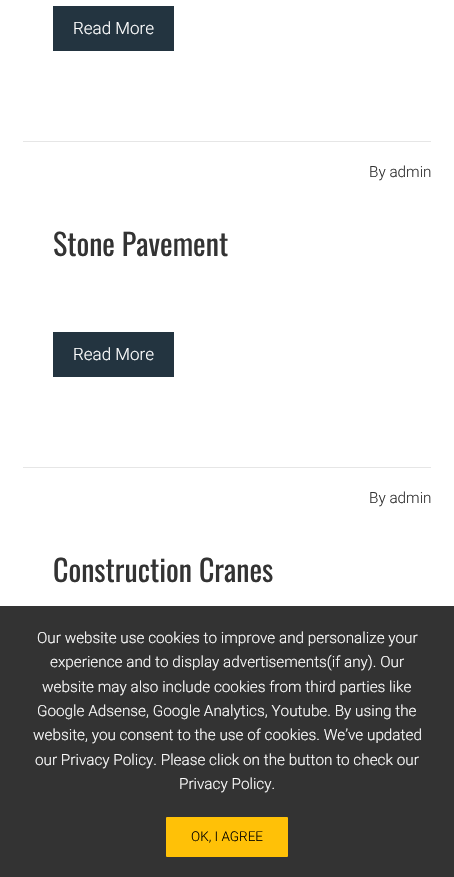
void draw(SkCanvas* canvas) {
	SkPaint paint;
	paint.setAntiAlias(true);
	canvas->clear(0xffffffff);
	paint.setColor(0xff233440);
	canvas->drawRect(SkRect::MakeXYWH(53, 6, 121, 45), paint);
	SkFont f1(fontMgr->matchFamilyStyle("Roboto", SkFontStyle(300, SkFontStyle::kNormal_Width, SkFontStyle::kUpright_Slant)), 17);
	f1.setSubpixel(true);
	paint.setColor(0xffffffff);
	canvas->drawString("Read More", 73, 34, f1, paint);
	paint.setColor(0xffe6e6e6);
	canvas->drawRect(SkRect::MakeXYWH(23, 141, 408, 1), paint);
	SkFont f2(fontMgr->matchFamilyStyle("Roboto", SkFontStyle(300, SkFontStyle::kNormal_Width, SkFontStyle::kUpright_Slant)), 15.3);
	f2.setSubpixel(true);
	paint.setColor(0xff333333);
	canvas->drawString("By admin", 369, 177, f2, paint);
	SkFont f3(fontMgr->matchFamilyStyle("Oswald", SkFontStyle::Normal()), 30);
	f3.setSubpixel(true);
	canvas->drawString("Stone Pavement", 53, 256, f3, paint);
	paint.setColor(0xff233440);
	canvas->drawRect(SkRect::MakeXYWH(53, 332, 121, 45), paint);
	paint.setColor(0xffffffff);
	canvas->drawString("Read More", 73, 360, f1, paint);
	paint.setColor(0xffe6e6e6);
	canvas->drawRect(SkRect::MakeXYWH(23, 467, 408, 1), paint);
	paint.setColor(0xff333333);
	canvas->drawString("By admin", 369, 503, f2, paint);
	canvas->drawString("Construction Cranes", 53, 582, f3, paint);
	canvas->drawRect(SkRect::MakeXYWH(0, 606, 454, 271), paint);
	paint.setColor(0xffffffff);
	canvas->drawString("Our website use cookies to improve and personalize your", 37, 643, f2, paint);
	canvas->drawString("experience and to display advertisements(if any). Our", 50, 667, f2, paint);
	canvas->drawString("website may also include cookies from third parties like", 42, 692, f2, paint);
	canvas->drawString("Google Adsense, Google Analytics, Youtube. By using the", 37, 716, f2, paint);
	canvas->drawString("website, you consent to the use of cookies. We’ve updated", 33, 740, f2, paint);
	canvas->drawString("our Privacy Policy. Please click on the button to check our", 35, 765, f2, paint);
	canvas->drawString("Privacy Policy.", 179, 789, f2, paint);
	paint.setColor(0xffffc107);
	canvas->drawRoundRect(SkRect::MakeXYWH(166, 817, 122, 40), 1, 1, paint);
	SkFont f4(fontMgr->matchFamilyStyle("Roboto", SkFontStyle(300, SkFontStyle::kNormal_Width, SkFontStyle::kUpright_Slant)), 13.5);
	f4.setSubpixel(true);
	paint.setColor(0xff000000);
	canvas->drawString("OK, I AGREE", 191, 841, f4, paint);
}
